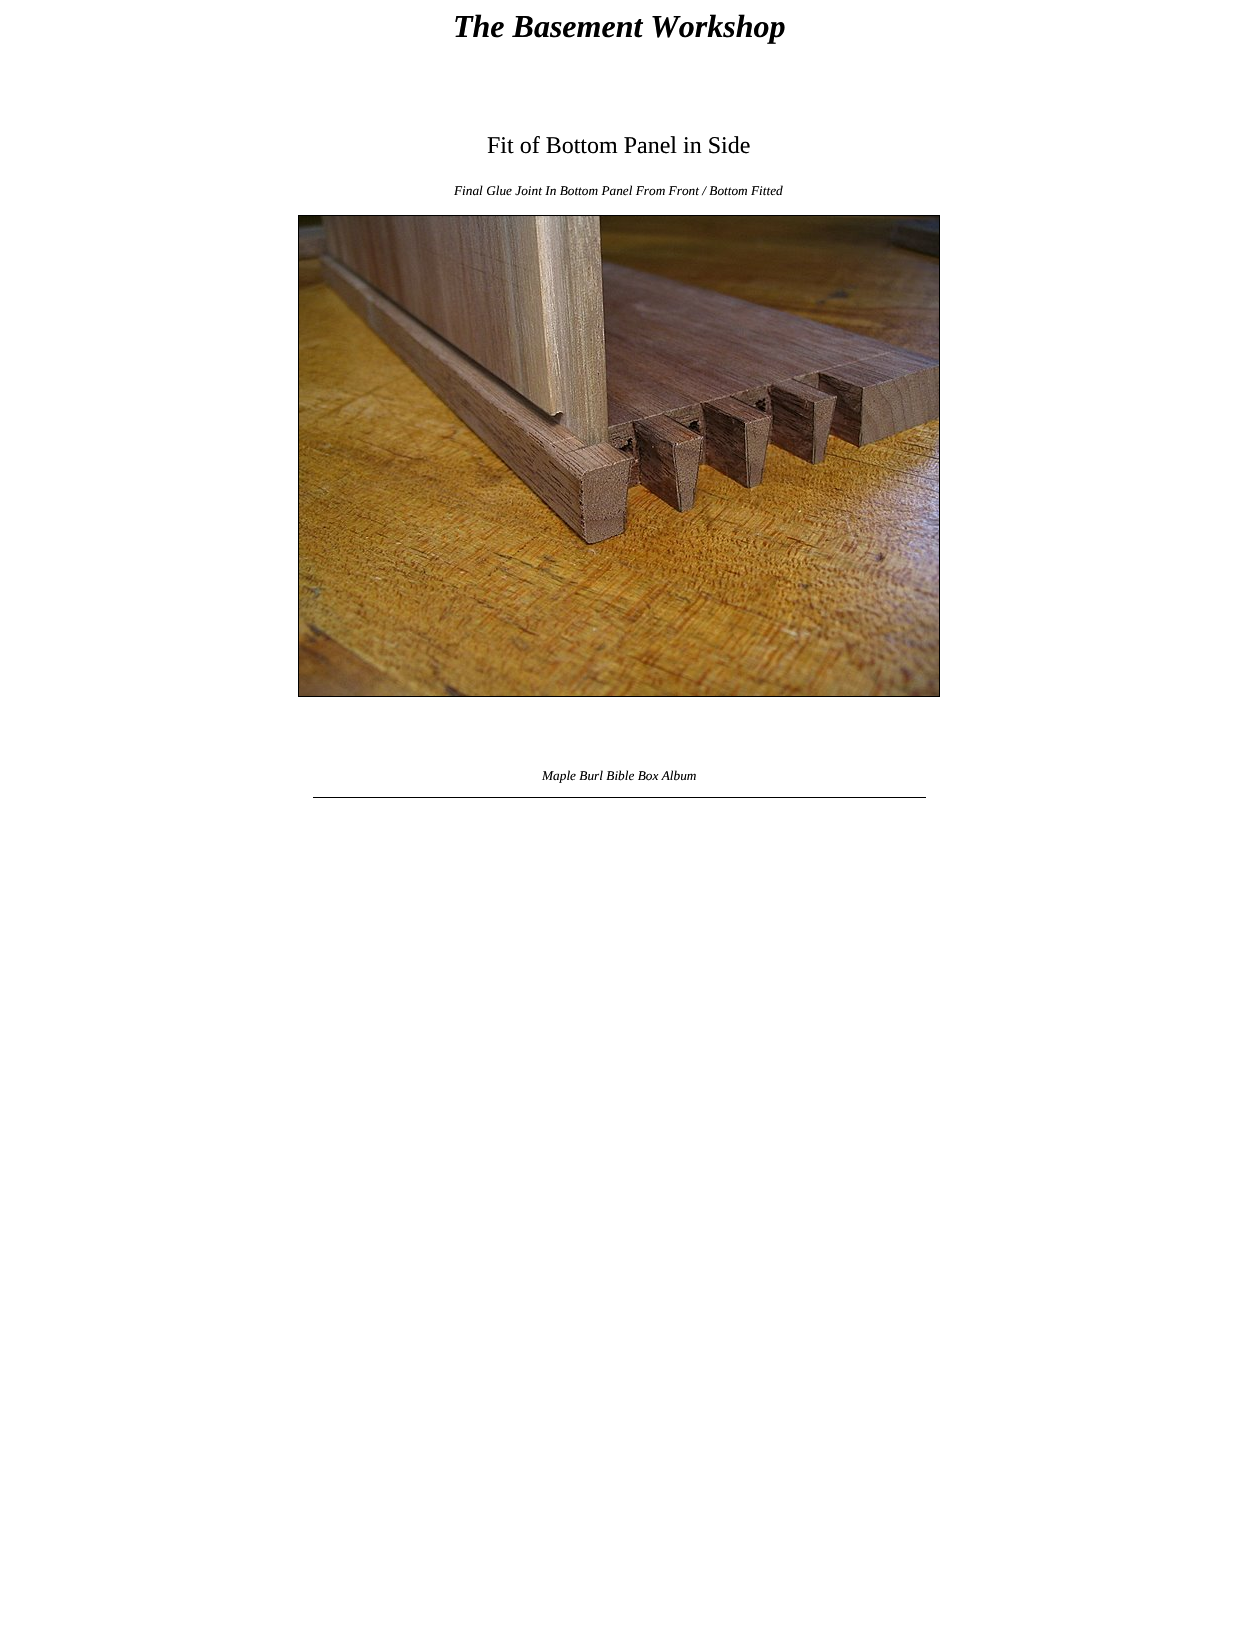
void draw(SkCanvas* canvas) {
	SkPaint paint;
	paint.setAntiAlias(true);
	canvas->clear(0xffffffff);
	SkFont f1(fontMgr->matchFamilyStyle("Liberation Serif", SkFontStyle::BoldItalic()), 32);
	f1.setSubpixel(true);
	paint.setColor(0xff000000);
	canvas->drawString("The Basement Workshop", 453, 37, f1, paint);
	SkFont f2(fontMgr->matchFamilyStyle("Liberation Serif", SkFontStyle::Normal()), 24);
	f2.setSubpixel(true);
	canvas->drawString("Fit of Bottom Panel in Side", 487, 153, f2, paint);
	SkFont f3(fontMgr->matchFamilyStyle("Liberation Serif", SkFontStyle::Italic()), 13.3);
	f3.setSubpixel(true);
	canvas->drawString("Final Glue Joint In Bottom Panel From Front / Bottom Fitted", 454, 195, f3, paint);
	paint.setStroke(true);
	paint.setStrokeWidth(1);
	canvas->drawRect(SkRect::MakeXYWH(298.5, 215.5, 641, 481), paint);
	canvas->drawImageRect(SkImages::DeferredFromEncodedData(SkData::MakeFromFileName("img1.png")), SkRect::MakeXYWH(299, 216, 640, 480), SkSamplingOptions());
	paint.setStroke(false);
	canvas->drawString("Maple Burl Bible Box Album", 542, 780, f3, paint);
	canvas->drawRect(SkRect::MakeXYWH(313, 797, 613, 1), paint);
}
